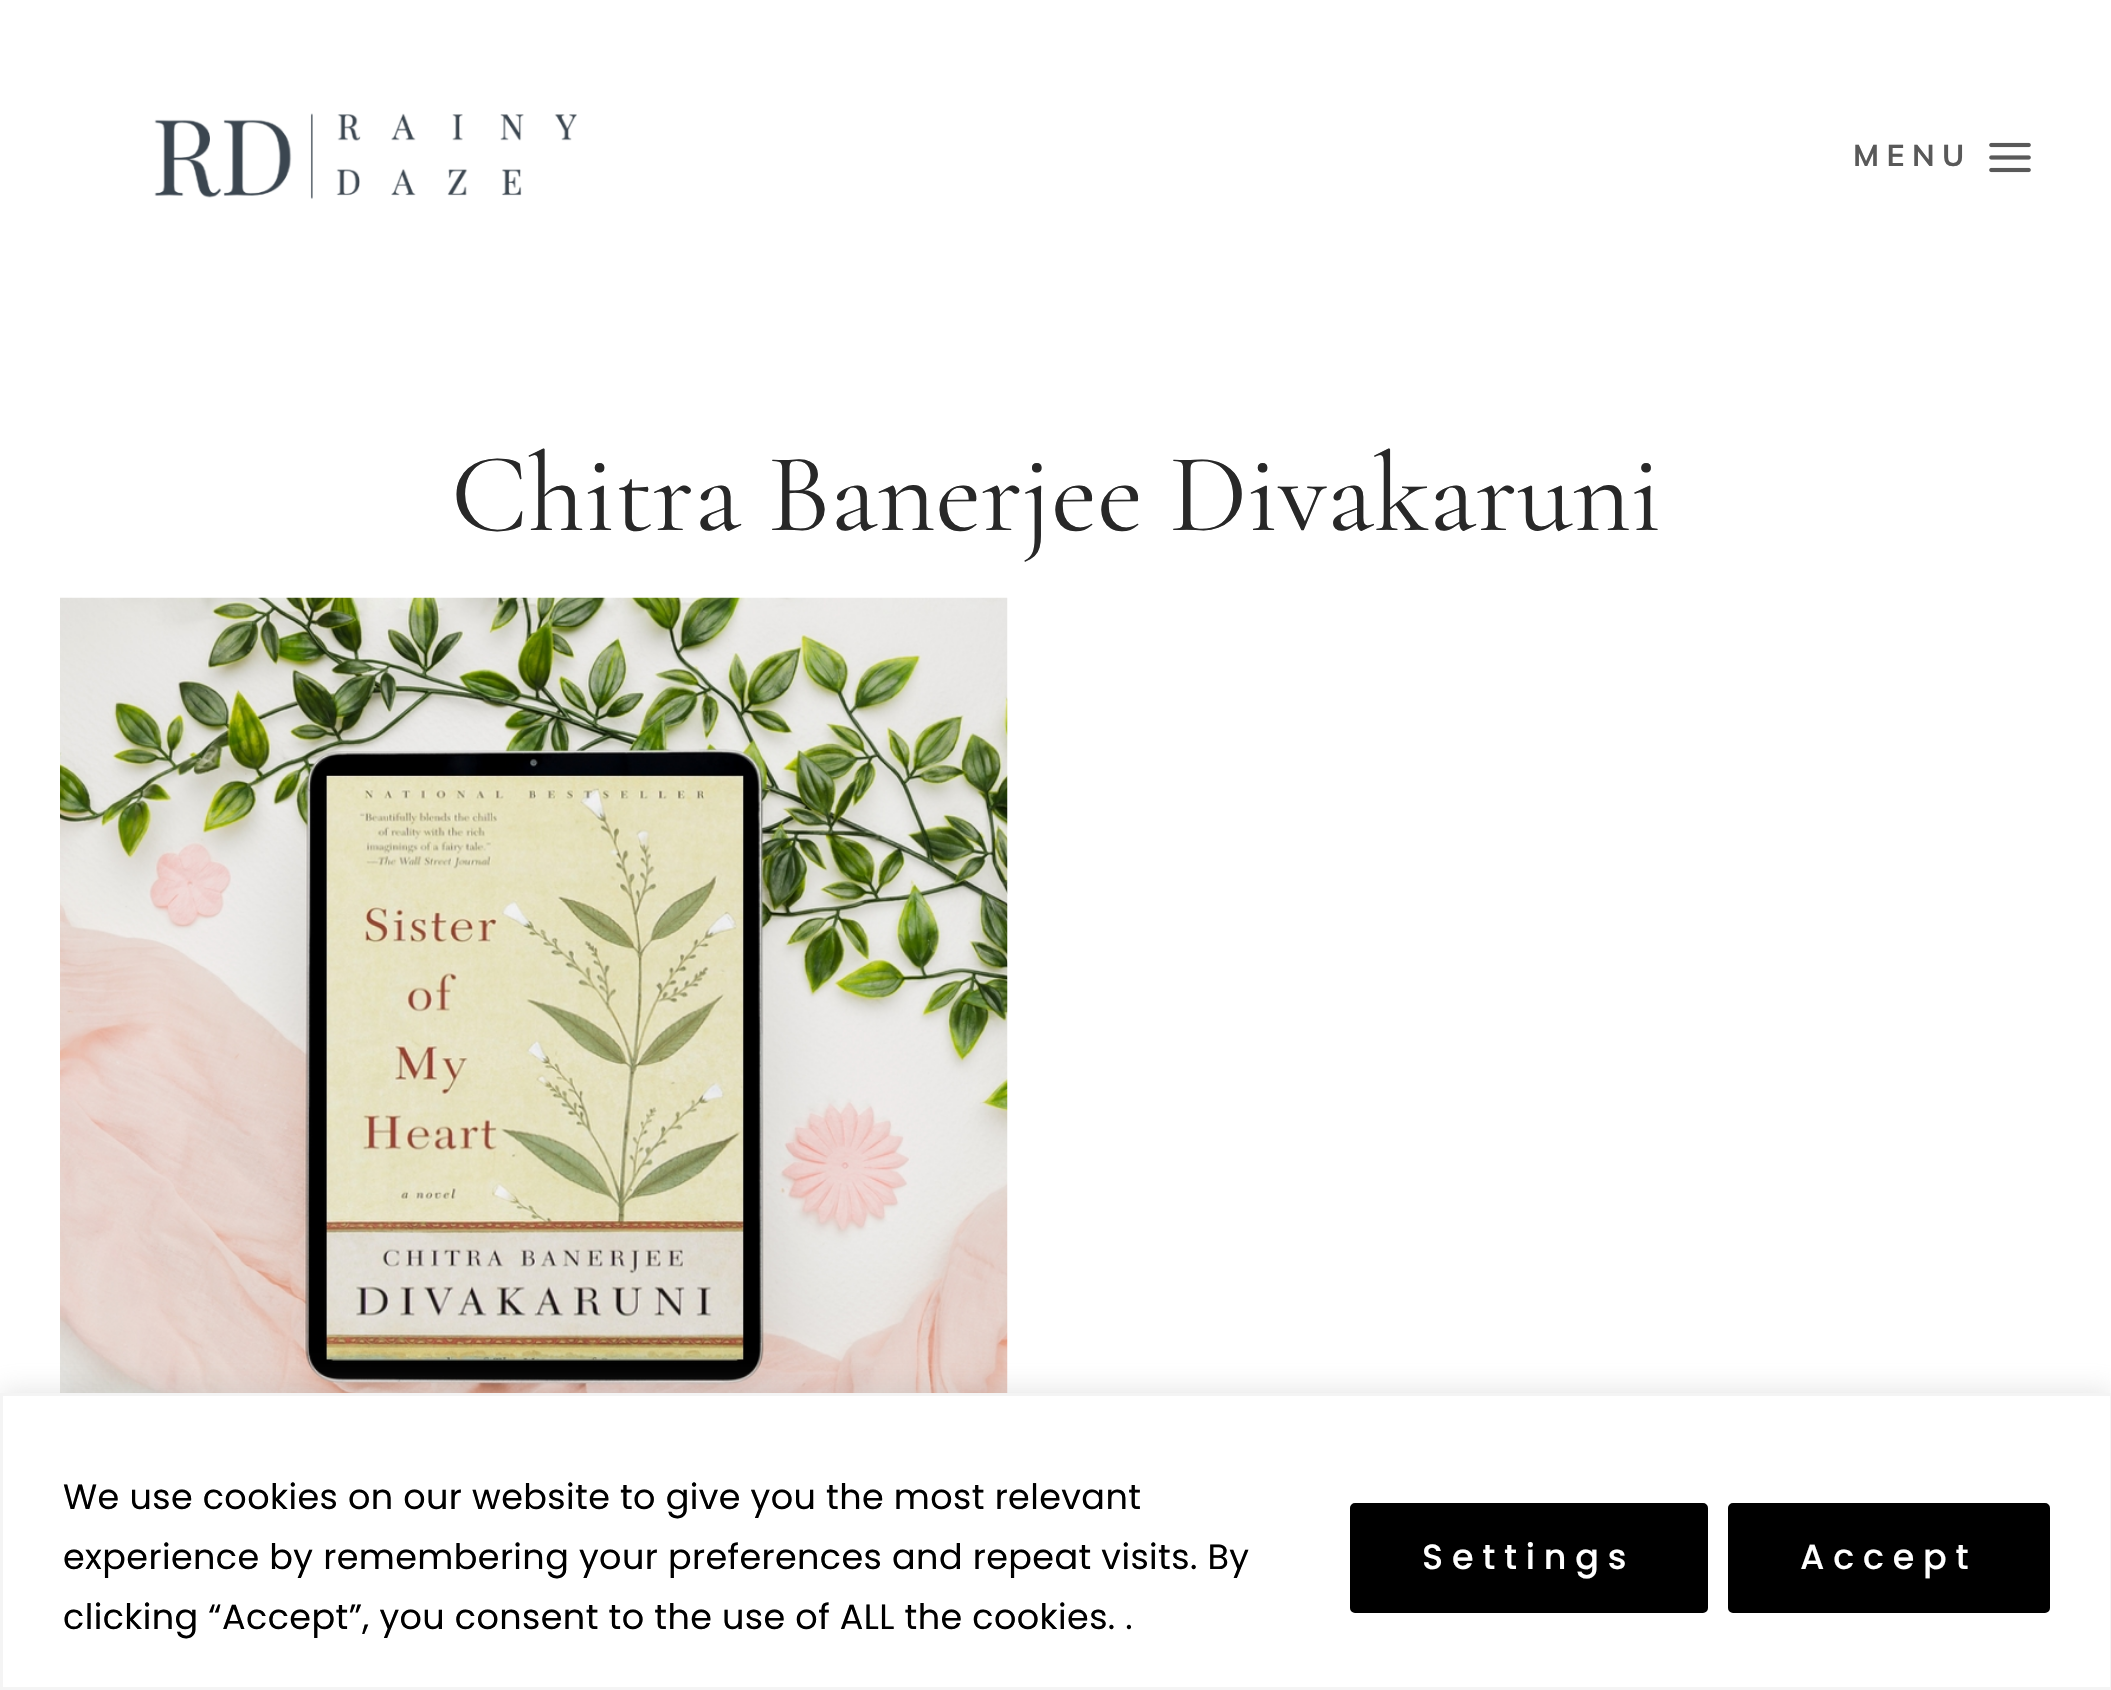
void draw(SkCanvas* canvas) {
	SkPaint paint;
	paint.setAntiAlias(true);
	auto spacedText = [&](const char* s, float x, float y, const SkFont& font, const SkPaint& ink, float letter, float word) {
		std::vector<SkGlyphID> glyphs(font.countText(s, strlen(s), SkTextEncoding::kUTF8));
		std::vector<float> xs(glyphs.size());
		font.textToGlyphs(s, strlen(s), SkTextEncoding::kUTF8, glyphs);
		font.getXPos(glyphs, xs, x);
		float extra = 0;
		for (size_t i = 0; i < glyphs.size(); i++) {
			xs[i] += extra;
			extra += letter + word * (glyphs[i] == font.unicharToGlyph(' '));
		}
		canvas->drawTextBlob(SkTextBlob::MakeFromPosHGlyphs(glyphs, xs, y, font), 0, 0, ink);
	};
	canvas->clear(0xffffffff);
	canvas->drawImageRect(SkImages::DeferredFromEncodedData(SkData::MakeFromFileName("img1.png")), SkRect::MakeXYWH(154, 113, 423, 86), SkSamplingOptions());
	SkFont f1(fontMgr->matchFamilyStyle("Mulish", SkFontStyle::Bold()), 30);
	f1.setSubpixel(true);
	paint.setColor(0xff595959);
	spacedText("MENU", 1853, 166, f1, paint, 7.5, 0);
	canvas->drawImageRect(SkImages::DeferredFromEncodedData(SkData::MakeFromFileName("img2.png")), SkRect::MakeXYWH(1989, 142, 42, 31), SkSamplingOptions());
	SkFont f2(fontMgr->matchFamilyStyle("Cormorant Garamond", SkFontStyle::Normal()), 112.5);
	f2.setSubpixel(true);
	paint.setColor(0xff282828);
	canvas->drawString("Chitra Banerjee Divakaruni", 451, 530, f2, paint);
	canvas->drawImageRect(SkImages::DeferredFromEncodedData(SkData::MakeFromFileName("img3.png")), SkRect::MakeXYWH(60, 597, 948, 796), SkSamplingOptions());
	paint.setColor(0x4dacabab);
	paint.setMaskFilter(SkMaskFilter::MakeBlur(kNormal_SkBlurStyle, 12.5));
	canvas->drawRect(SkRect::MakeXYWH(0, 1390, 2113, 298), paint);
	paint.setMaskFilter(nullptr);
	paint.setColor(0xffffffff);
	canvas->drawRect(SkRect::MakeXYWH(1.5, 1394.5, 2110, 294), paint);
	paint.setStroke(true);
	paint.setStrokeWidth(3);
	paint.setColor(0xfff4f4f4);
	canvas->drawRect(SkRect::MakeXYWH(1.5, 1394.5, 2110, 294), paint);
	SkFont f3(fontMgr->matchFamilyStyle("Poppins", SkFontStyle::Normal()), 35);
	f3.setSubpixel(true);
	paint.setStroke(false);
	paint.setColor(0xff000000);
	spacedText("We use cookies on our website to give you the most relevant", 63, 1509, f3, paint, 0.4, 0);
	spacedText("experience by remembering your preferences and repeat visits. By", 63, 1569, f3, paint, 0.4, 0);
	spacedText("clicking “Accept”, you consent to the use of ALL the cookies. .", 63, 1629, f3, paint, 0.4, 0);
	canvas->drawRoundRect(SkRect::MakeXYWH(1352.5, 1505.5, 353, 105), 2.5, 2.5, paint);
	paint.setStroke(true);
	paint.setStrokeWidth(5);
	canvas->drawRoundRect(SkRect::MakeXYWH(1352.5, 1505.5, 353, 105), 2.5, 2.5, paint);
	SkFont f4(fontMgr->matchFamilyStyle("Poppins", SkFontStyle(500, SkFontStyle::kNormal_Width, SkFontStyle::kUpright_Slant)), 35);
	f4.setSubpixel(true);
	paint.setStroke(false);
	paint.setColor(0xffffffff);
	spacedText("Settings", 1422, 1569, f4, paint, 8.75, 0);
	paint.setColor(0xff000000);
	canvas->drawRoundRect(SkRect::MakeXYWH(1730.5, 1505.5, 317, 105), 2.5, 2.5, paint);
	paint.setStroke(true);
	canvas->drawRoundRect(SkRect::MakeXYWH(1730.5, 1505.5, 317, 105), 2.5, 2.5, paint);
	paint.setStroke(false);
	paint.setColor(0xffffffff);
	spacedText("Accept", 1800, 1569, f4, paint, 8.75, 0);
}
